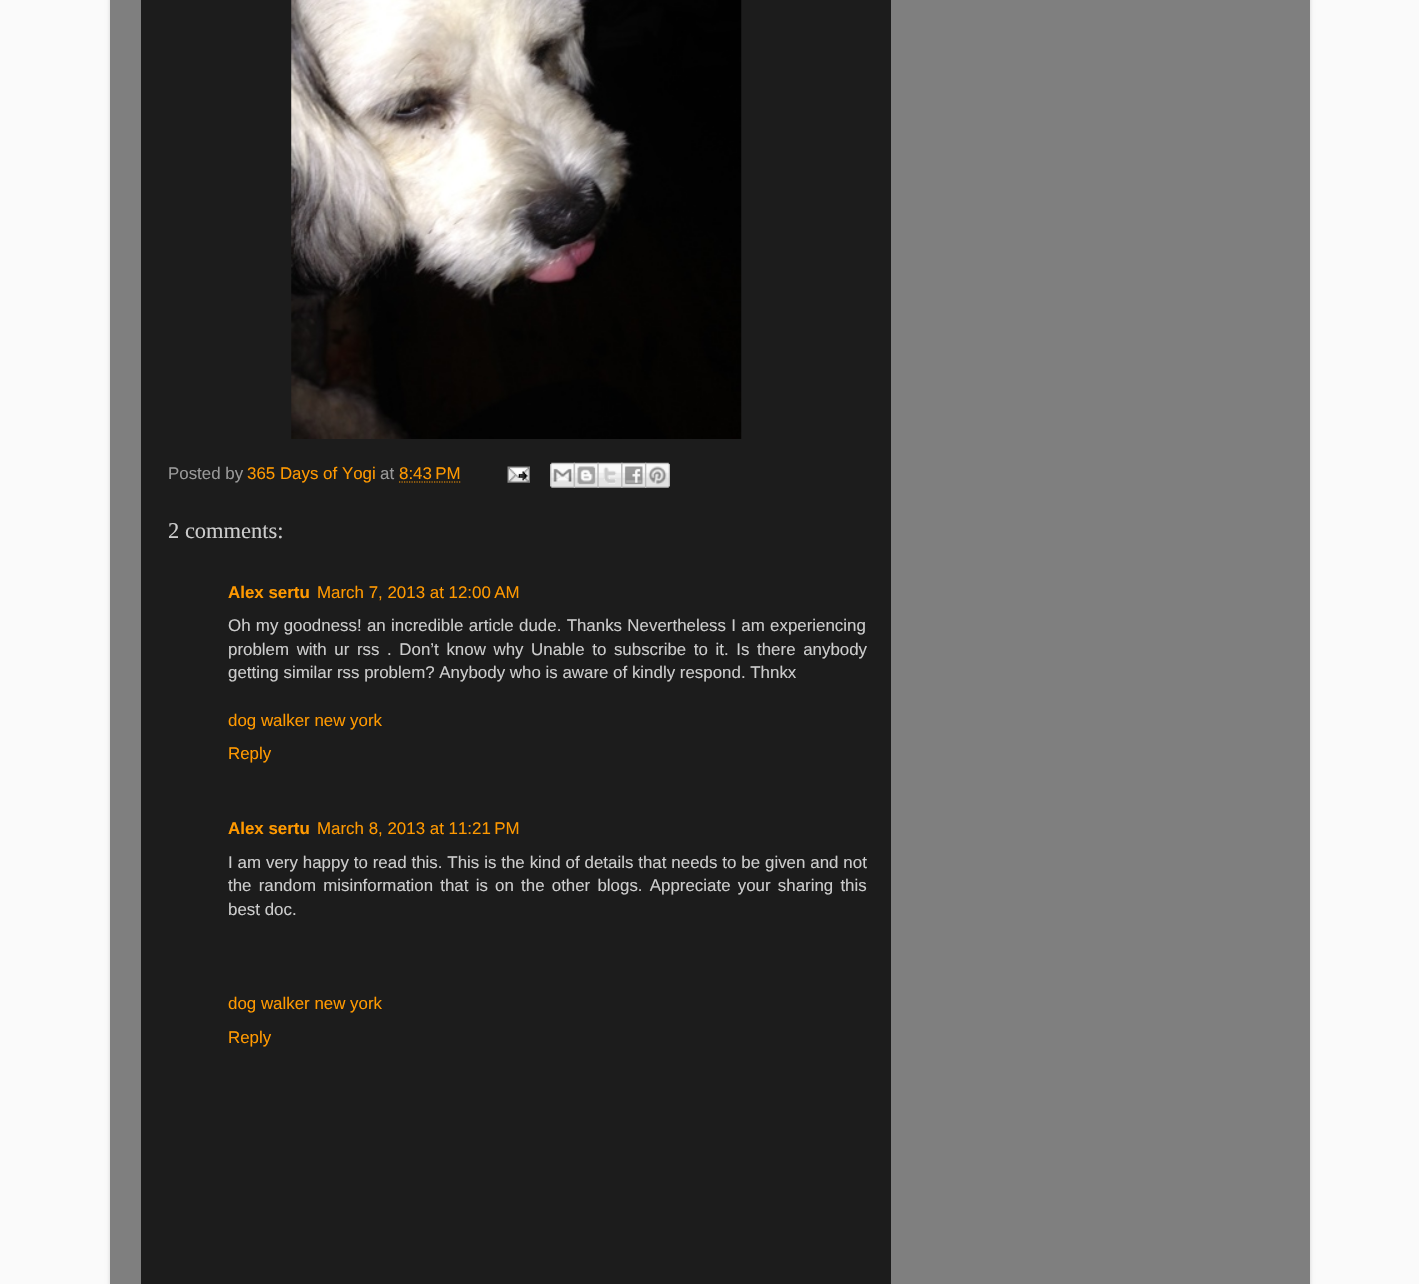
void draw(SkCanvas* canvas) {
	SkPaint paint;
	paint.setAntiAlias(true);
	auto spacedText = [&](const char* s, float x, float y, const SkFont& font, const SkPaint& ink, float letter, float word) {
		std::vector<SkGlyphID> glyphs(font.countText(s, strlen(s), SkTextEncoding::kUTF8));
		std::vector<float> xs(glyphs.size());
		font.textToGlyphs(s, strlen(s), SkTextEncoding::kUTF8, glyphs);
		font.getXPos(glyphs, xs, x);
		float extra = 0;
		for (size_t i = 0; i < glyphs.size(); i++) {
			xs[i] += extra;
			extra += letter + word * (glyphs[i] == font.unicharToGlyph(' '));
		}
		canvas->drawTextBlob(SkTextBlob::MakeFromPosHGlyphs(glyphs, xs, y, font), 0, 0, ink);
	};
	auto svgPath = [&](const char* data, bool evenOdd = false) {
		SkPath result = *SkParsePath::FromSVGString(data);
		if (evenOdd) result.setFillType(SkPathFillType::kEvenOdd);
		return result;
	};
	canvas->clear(0xfffafafa);
	paint.setColor(0x26000000);
	paint.setMaskFilter(SkMaskFilter::MakeBlur(kNormal_SkBlurStyle, 2));
	canvas->drawRect(SkRect::MakeXYWH(110, -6, 1200, 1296), paint);
	paint.setMaskFilter(nullptr);
	paint.setColor(0xff7f7f7f);
	canvas->drawRect(SkRect::MakeXYWH(110, 0, 1200, 1284), paint);
	paint.setColor(0xff1c1c1c);
	canvas->drawRect(SkRect::MakeXYWH(141, 0, 750, 1284), paint);
	canvas->drawImageRect(SkImages::DeferredFromEncodedData(SkData::MakeFromFileName("img1.png")), SkRect::MakeXYWH(291, 0, 451, 439), SkSamplingOptions());
	SkFont f1(fontMgr->matchFamilyStyle("Liberation Sans", SkFontStyle::Normal()), 16.9);
	f1.setSubpixel(true);
	paint.setColor(0xff999999);
	canvas->drawString("Posted by", 168, 479, f1, paint);
	paint.setColor(0xffff9900);
	canvas->drawString("365 Days of Yogi", 247, 479, f1, paint);
	paint.setColor(0xff999999);
	canvas->drawString("at", 380, 479, f1, paint);
	paint.setColor(0xffff9900);
	canvas->drawString("8:43 PM", 399, 479, f1, paint);
	paint.setStroke(true);
	paint.setStrokeWidth(1.2);
	paint.setPathEffect(SkDashPathEffect::Make({{1.25f, 1.25f}}, 0));
	canvas->drawPath(svgPath("M399 482H461"), paint);
	paint.setPathEffect(nullptr);
	canvas->drawImageRect(SkImages::DeferredFromEncodedData(SkData::MakeFromFileName("img2.png")), SkRect::MakeXYWH(507, 466, 23, 17), SkSamplingOptions());
	canvas->drawImageRect(SkImages::DeferredFromEncodedData(SkData::MakeFromFileName("img3.png")), SkRect::MakeXYWH(550, 462, 25, 26), SkSamplingOptions());
	canvas->drawImageRect(SkImages::DeferredFromEncodedData(SkData::MakeFromFileName("img4.png")), SkRect::MakeXYWH(573, 462, 26, 26), SkSamplingOptions());
	canvas->drawImageRect(SkImages::DeferredFromEncodedData(SkData::MakeFromFileName("img5.png")), SkRect::MakeXYWH(597, 462, 26, 26), SkSamplingOptions());
	canvas->drawImageRect(SkImages::DeferredFromEncodedData(SkData::MakeFromFileName("img6.png")), SkRect::MakeXYWH(621, 462, 26, 26), SkSamplingOptions());
	canvas->drawImageRect(SkImages::DeferredFromEncodedData(SkData::MakeFromFileName("img7.png")), SkRect::MakeXYWH(645, 462, 25, 26), SkSamplingOptions());
	SkFont f2(fontMgr->matchFamilyStyle("Liberation Serif", SkFontStyle::Normal()), 22.5);
	f2.setSubpixel(true);
	paint.setStroke(false);
	paint.setColor(0xffcccccc);
	canvas->drawString("2 comments:", 168, 538, f2, paint);
	SkFont f3(fontMgr->matchFamilyStyle("Liberation Sans", SkFontStyle::Bold()), 16.9);
	f3.setSubpixel(true);
	paint.setColor(0xffff9900);
	canvas->drawString("Alex sertu", 228, 598, f3, paint);
	canvas->drawString("March 7, 2013 at 12:00 AM", 317, 598, f1, paint);
	paint.setColor(0xffcccccc);
	spacedText("Oh my goodness! an incredible article dude. Thanks Nevertheless I am experiencing", 228, 631, f1, paint, 0, 0.6);
	spacedText("problem with ur rss . Don’t know why Unable to subscribe to it. Is there anybody", 228, 655, f1, paint, 0, 2.9);
	canvas->drawString("getting similar rss problem? Anybody who is aware of kindly respond. Thnkx", 228, 678, f1, paint);
	paint.setColor(0xffff9900);
	canvas->drawString("dog walker new york", 228, 726, f1, paint);
	canvas->drawString("Reply", 228, 759, f1, paint);
	canvas->drawString("Alex sertu", 228, 834, f3, paint);
	canvas->drawString("March 8, 2013 at 11:21 PM", 317, 834, f1, paint);
	paint.setColor(0xffcccccc);
	spacedText("I am very happy to read this. This is the kind of details that needs to be given and not", 228, 868, f1, paint, 0, 0.2);
	spacedText("the random misinformation that is on the other blogs. Appreciate your sharing this", 228, 891, f1, paint, 0, 2.5);
	canvas->drawString("best doc.", 228, 915, f1, paint);
	paint.setColor(0xffff9900);
	canvas->drawString("dog walker new york", 228, 1009, f1, paint);
	canvas->drawString("Reply", 228, 1043, f1, paint);
}
